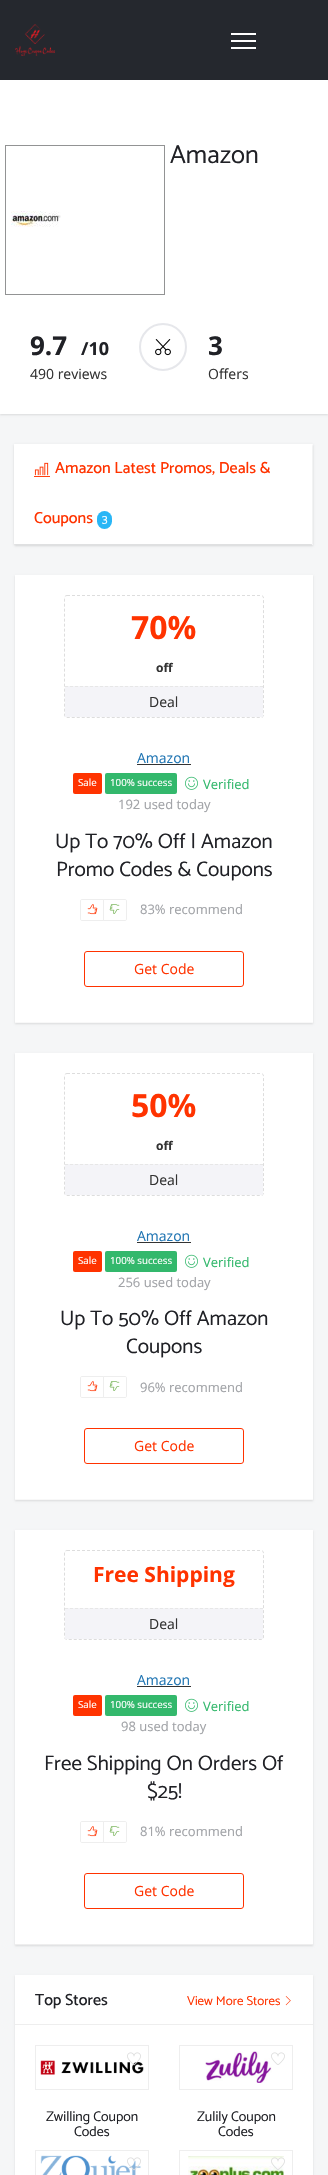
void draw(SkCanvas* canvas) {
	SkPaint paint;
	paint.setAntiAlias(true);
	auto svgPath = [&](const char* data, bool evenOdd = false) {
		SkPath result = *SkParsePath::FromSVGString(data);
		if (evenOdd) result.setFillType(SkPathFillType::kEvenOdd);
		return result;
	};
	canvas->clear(0xfff5f6f7);
	paint.setColor(0xffd9dadb);
	paint.setMaskFilter(SkMaskFilter::MakeBlur(kNormal_SkBlurStyle, 1));
	canvas->drawRect(SkRect::MakeXYWH(0, 66, 328, 349), paint);
	paint.setMaskFilter(nullptr);
	paint.setColor(0xff25282e);
	canvas->drawRect(SkRect::MakeXYWH(0, 0, 328, 80), paint);
	canvas->drawImageRect(SkImages::DeferredFromEncodedData(SkData::MakeFromFileName("img1.png")), SkRect::MakeXYWH(15, 24, 40, 32), SkSamplingOptions());
	paint.setColor(0xffffffff);
	canvas->drawRect(SkRect::MakeXYWH(231, 33, 25, 2), paint);
	canvas->drawRect(SkRect::MakeXYWH(231, 40, 25, 2), paint);
	canvas->drawRect(SkRect::MakeXYWH(231, 47, 25, 2), paint);
	canvas->drawRect(SkRect::MakeXYWH(0, 80, 328, 334), paint);
	paint.setStroke(true);
	paint.setStrokeWidth(1);
	paint.setColor(0xff929394);
	canvas->drawRect(SkRect::MakeXYWH(5.5, 145.5, 159, 149), paint);
	canvas->drawImageRect(SkImages::DeferredFromEncodedData(SkData::MakeFromFileName("img2.png")), SkRect::MakeXYWH(11, 211, 50, 16), SkSamplingOptions());
	SkFont f1(fontMgr->matchFamilyStyle("Catamaran", SkFontStyle::Normal()), 26);
	f1.setSubpixel(true);
	paint.setStroke(false);
	paint.setColor(0xff202126);
	canvas->drawString("Amazon", 170, 163, f1, paint);
	SkFont f2(fontMgr->matchFamilyStyle("Open Sans", SkFontStyle::Bold()), 26);
	f2.setSubpixel(true);
	canvas->drawString("9.7", 30, 355, f2, paint);
	SkFont f3(fontMgr->matchFamilyStyle("Open Sans", SkFontStyle::Bold()), 18);
	f3.setSubpixel(true);
	canvas->drawString("/10", 81, 355, f3, paint);
	SkFont f4(fontMgr->matchFamilyStyle("Open Sans", SkFontStyle::Normal()), 14);
	f4.setSubpixel(true);
	paint.setColor(0xff333333);
	canvas->drawString("490 reviews", 30, 379, f4, paint);
	paint.setStroke(true);
	paint.setStrokeWidth(2);
	paint.setColor(0xffe6e7eb);
	canvas->drawCircle(163, 347, 23, paint);
	canvas->drawImageRect(SkImages::DeferredFromEncodedData(SkData::MakeFromFileName("img3.png")), SkRect::MakeXYWH(155, 339, 16, 17), SkSamplingOptions());
	paint.setStroke(false);
	paint.setColor(0xff202126);
	canvas->drawString("3", 208, 355, f2, paint);
	paint.setColor(0xff333333);
	canvas->drawString("Offers", 208, 379, f4, paint);
	paint.setColor(0xffd9dadb);
	paint.setMaskFilter(SkMaskFilter::MakeBlur(kNormal_SkBlurStyle, 1));
	canvas->drawRect(SkRect::MakeXYWH(15, 445, 298, 101), paint);
	paint.setMaskFilter(nullptr);
	paint.setColor(0xffffffff);
	canvas->drawRect(SkRect::MakeXYWH(312, 444, 1, 101), paint);
	paint.setColor(0xffeeeeee);
	canvas->drawRect(SkRect::MakeXYWH(14, 544, 298, 1), paint);
	paint.setColor(0xffd9dadb);
	paint.setMaskFilter(SkMaskFilter::MakeBlur(kNormal_SkBlurStyle, 1));
	canvas->drawRect(SkRect::MakeXYWH(14, 445, 298, 100), paint);
	paint.setMaskFilter(nullptr);
	paint.setColor(0xffffffff);
	canvas->drawRect(SkRect::MakeXYWH(14, 444, 298, 100), paint);
	canvas->drawImageRect(SkImages::DeferredFromEncodedData(SkData::MakeFromFileName("img4.png")), SkRect::MakeXYWH(34, 462, 16, 15), SkSamplingOptions());
	SkFont f5(fontMgr->matchFamilyStyle("Catamaran", SkFontStyle(500, SkFontStyle::kNormal_Width, SkFontStyle::kUpright_Slant)), 16);
	f5.setSubpixel(true);
	paint.setColor(0xffff3300);
	canvas->drawString("Amazon Latest Promos, Deals &", 55, 473, f5, paint);
	canvas->drawString("Coupons", 34, 523, f5, paint);
	paint.setColor(0xff29b6f6);
	canvas->drawRoundRect(SkRect::MakeXYWH(97, 511, 15, 18), 7.5, 7.5, paint);
	SkFont f6(fontMgr->matchFamilyStyle("Catamaran", SkFontStyle::Normal()), 12);
	f6.setSubpixel(true);
	paint.setColor(0xffffffff);
	canvas->drawString("3", 102, 523, f6, paint);
	paint.setColor(0xffd9dadb);
	paint.setMaskFilter(SkMaskFilter::MakeBlur(kNormal_SkBlurStyle, 1));
	canvas->drawRect(SkRect::MakeXYWH(15, 576, 298, 448), paint);
	paint.setMaskFilter(nullptr);
	paint.setColor(0xffffffff);
	canvas->drawRect(SkRect::MakeXYWH(15, 575, 298, 447), paint);
	paint.setColor(0xfff8f8f8);
	canvas->drawRect(SkRect::MakeXYWH(15, 1022, 298, 1), paint);
	paint.setStroke(true);
	paint.setStrokeWidth(1);
	paint.setColor(0xffdddddd);
	paint.setPathEffect(SkDashPathEffect::Make({{3, 2}}, 0));
	canvas->drawPath(svgPath("M67 595.5H261C262.5 595.5 263.5 596.5 263.5 598V715C263.5 716.5 262.5 717.5 261 717.5H67C65.5 717.5 64.5 716.5 64.5 715V598C64.5 596.5 65.5 595.5 67 595.5Z"), paint);
	paint.setPathEffect(nullptr);
	SkFont f7(fontMgr->matchFamilyStyle("Open Sans", SkFontStyle::Bold()), 32);
	f7.setSubpixel(true);
	paint.setStroke(false);
	paint.setColor(0xffff3300);
	canvas->drawString("70%", 131, 639, f7, paint);
	SkFont f8(fontMgr->matchFamilyStyle("Open Sans", SkFontStyle::Bold()), 12);
	f8.setSubpixel(true);
	paint.setColor(0xff333333);
	canvas->drawString("off", 156, 672, f8, paint);
	paint.setColor(0xdbf2f2f7);
	canvas->drawRect(SkRect::MakeXYWH(65, 686, 198, 31), paint);
	paint.setStroke(true);
	paint.setColor(0xffe7e7e7);
	paint.setPathEffect(SkDashPathEffect::Make({{3, 2}}, 0));
	canvas->drawPath(svgPath("M65 686.5H263"), paint);
	paint.setPathEffect(nullptr);
	paint.setStroke(false);
	paint.setColor(0xff333333);
	canvas->drawString("Deal", 149, 707, f4, paint);
	paint.setColor(0xff2075b3);
	canvas->drawString("Amazon", 137, 763, f4, paint);
	paint.setColor(0xff333333);
	canvas->drawRect(SkRect::MakeXYWH(137, 764, 54, 1), paint);
	paint.setColor(0xffff3300);
	canvas->drawRoundRect(SkRect::MakeXYWH(73, 773, 29, 21), 2, 2, paint);
	SkFont f9(fontMgr->matchFamilyStyle("Open Sans", SkFontStyle::Normal()), 9.75);
	f9.setSubpixel(true);
	paint.setColor(0xffffffff);
	canvas->drawString("Sale", 78, 786, f9, paint);
	paint.setColor(0xff33b86c);
	canvas->drawRoundRect(SkRect::MakeXYWH(105, 773, 72, 21), 2, 2, paint);
	paint.setColor(0xffffffff);
	canvas->drawString("100% success", 110, 786, f9, paint);
	canvas->drawImageRect(SkImages::DeferredFromEncodedData(SkData::MakeFromFileName("img5.png")), SkRect::MakeXYWH(185, 776, 13, 14), SkSamplingOptions());
	SkFont f10(fontMgr->matchFamilyStyle("Open Sans", SkFontStyle::Normal()), 13);
	f10.setSubpixel(true);
	paint.setColor(0xff33b86c);
	canvas->drawString("Verified", 203, 789, f10, paint);
	paint.setColor(0xffa1a3a7);
	canvas->drawString("192 used today", 118, 809, f10, paint);
	SkFont f11(fontMgr->matchFamilyStyle("Catamaran", SkFontStyle::Normal()), 21);
	f11.setSubpixel(true);
	paint.setColor(0xff202126);
	canvas->drawString("Up To 70% Off | Amazon", 55, 848, f11, paint);
	canvas->drawString("Promo Codes & Coupons", 56, 876, f11, paint);
	paint.setStroke(true);
	paint.setColor(0xffeeeeee);
	canvas->drawPath(svgPath("M82 899.5H103.5V920.5H82C81 920.5 80.5 920 80.5 919V901C80.5 900 81 899.5 82 899.5Z"), paint);
	canvas->drawImageRect(SkImages::DeferredFromEncodedData(SkData::MakeFromFileName("img6.png")), SkRect::MakeXYWH(87, 904, 11, 11), SkSamplingOptions());
	paint.setStroke(false);
	paint.setColor(0xffffffff);
	canvas->drawPath(svgPath("M103.5 899.5H125C126 899.5 126.5 900 126.5 901V919C126.5 920 126 920.5 125 920.5H103.5Z"), paint);
	paint.setStroke(true);
	paint.setColor(0xffeeeeee);
	canvas->drawPath(svgPath("M103.5 899.5H125C126 899.5 126.5 900 126.5 901V919C126.5 920 126 920.5 125 920.5H103.5Z"), paint);
	canvas->drawImageRect(SkImages::DeferredFromEncodedData(SkData::MakeFromFileName("img7.png")), SkRect::MakeXYWH(109, 904, 11, 10), SkSamplingOptions());
	paint.setStroke(false);
	paint.setColor(0xffa1a3a7);
	canvas->drawString("83% recommend", 140, 914, f10, paint);
	paint.setStroke(true);
	paint.setColor(0xffff3300);
	canvas->drawRoundRect(SkRect::MakeXYWH(84.5, 951.5, 159, 35), 2.5, 2.5, paint);
	paint.setStroke(false);
	canvas->drawString("Get Code", 134, 974, f4, paint);
	paint.setColor(0xffd9dadb);
	paint.setMaskFilter(SkMaskFilter::MakeBlur(kNormal_SkBlurStyle, 1));
	canvas->drawRect(SkRect::MakeXYWH(15, 1054, 298, 447), paint);
	paint.setMaskFilter(nullptr);
	paint.setColor(0xffffffff);
	canvas->drawRect(SkRect::MakeXYWH(15, 1053, 298, 446), paint);
	paint.setColor(0xfff8f8f8);
	canvas->drawRect(SkRect::MakeXYWH(15, 1499, 298, 1), paint);
	paint.setStroke(true);
	paint.setColor(0xffdddddd);
	paint.setPathEffect(SkDashPathEffect::Make({{3, 2}}, 0));
	canvas->drawPath(svgPath("M67 1073.5H261C262.5 1073.5 263.5 1074.5 263.5 1076V1193C263.5 1194.5 262.5 1195.5 261 1195.5H67C65.5 1195.5 64.5 1194.5 64.5 1193V1076C64.5 1074.5 65.5 1073.5 67 1073.5Z"), paint);
	paint.setPathEffect(nullptr);
	paint.setStroke(false);
	paint.setColor(0xffff3300);
	canvas->drawString("50%", 131, 1117, f7, paint);
	paint.setColor(0xff333333);
	canvas->drawString("off", 156, 1150, f8, paint);
	paint.setColor(0xdbf2f2f7);
	canvas->drawRect(SkRect::MakeXYWH(65, 1164, 198, 31), paint);
	paint.setStroke(true);
	paint.setColor(0xffe7e7e7);
	paint.setPathEffect(SkDashPathEffect::Make({{3, 2}}, 0));
	canvas->drawPath(svgPath("M65 1164.5H263"), paint);
	paint.setPathEffect(nullptr);
	paint.setStroke(false);
	paint.setColor(0xff333333);
	canvas->drawString("Deal", 149, 1185, f4, paint);
	paint.setColor(0xff2075b3);
	canvas->drawString("Amazon", 137, 1241, f4, paint);
	paint.setColor(0xff333333);
	canvas->drawRect(SkRect::MakeXYWH(137, 1242, 54, 1), paint);
	paint.setColor(0xffff3300);
	canvas->drawRoundRect(SkRect::MakeXYWH(73, 1251, 29, 21), 2, 2, paint);
	paint.setColor(0xffffffff);
	canvas->drawString("Sale", 78, 1264, f9, paint);
	paint.setColor(0xff33b86c);
	canvas->drawRoundRect(SkRect::MakeXYWH(105, 1251, 72, 21), 2, 2, paint);
	paint.setColor(0xffffffff);
	canvas->drawString("100% success", 110, 1264, f9, paint);
	canvas->drawImageRect(SkImages::DeferredFromEncodedData(SkData::MakeFromFileName("img5.png")), SkRect::MakeXYWH(185, 1254, 13, 14), SkSamplingOptions());
	paint.setColor(0xff33b86c);
	canvas->drawString("Verified", 203, 1267, f10, paint);
	paint.setColor(0xffa1a3a7);
	canvas->drawString("256 used today", 118, 1287, f10, paint);
	paint.setColor(0xff202126);
	canvas->drawString("Up To 50% Off Amazon", 60, 1325, f11, paint);
	canvas->drawString("Coupons", 126, 1353, f11, paint);
	paint.setStroke(true);
	paint.setColor(0xffeeeeee);
	canvas->drawPath(svgPath("M82 1376.5H103.5V1397.5H82C81 1397.5 80.5 1397 80.5 1396V1378C80.5 1377 81 1376.5 82 1376.5Z"), paint);
	canvas->drawImageRect(SkImages::DeferredFromEncodedData(SkData::MakeFromFileName("img6.png")), SkRect::MakeXYWH(87, 1381, 11, 11), SkSamplingOptions());
	paint.setStroke(false);
	paint.setColor(0xffffffff);
	canvas->drawPath(svgPath("M103.5 1376.5H125C126 1376.5 126.5 1377 126.5 1378V1396C126.5 1397 126 1397.5 125 1397.5H103.5Z"), paint);
	paint.setStroke(true);
	paint.setColor(0xffeeeeee);
	canvas->drawPath(svgPath("M103.5 1376.5H125C126 1376.5 126.5 1377 126.5 1378V1396C126.5 1397 126 1397.5 125 1397.5H103.5Z"), paint);
	canvas->drawImageRect(SkImages::DeferredFromEncodedData(SkData::MakeFromFileName("img7.png")), SkRect::MakeXYWH(109, 1381, 11, 10), SkSamplingOptions());
	paint.setStroke(false);
	paint.setColor(0xffa1a3a7);
	canvas->drawString("96% recommend", 140, 1392, f10, paint);
	paint.setStroke(true);
	paint.setColor(0xffff3300);
	canvas->drawRoundRect(SkRect::MakeXYWH(84.5, 1428.5, 159, 35), 2.5, 2.5, paint);
	paint.setStroke(false);
	canvas->drawString("Get Code", 134, 1451, f4, paint);
	paint.setColor(0xffd9dadb);
	paint.setMaskFilter(SkMaskFilter::MakeBlur(kNormal_SkBlurStyle, 1));
	canvas->drawRect(SkRect::MakeXYWH(15, 1531, 298, 415), paint);
	paint.setMaskFilter(nullptr);
	paint.setColor(0xffffffff);
	canvas->drawRect(SkRect::MakeXYWH(15, 1530, 298, 414), paint);
	paint.setColor(0xffeeeeee);
	canvas->drawRect(SkRect::MakeXYWH(15, 1944, 298, 1), paint);
	paint.setStroke(true);
	paint.setColor(0xffdddddd);
	paint.setPathEffect(SkDashPathEffect::Make({{3, 2}}, 0));
	canvas->drawPath(svgPath("M67 1550.5H261C262.5 1550.5 263.5 1551.5 263.5 1553V1637C263.5 1638.5 262.5 1639.5 261 1639.5H67C65.5 1639.5 64.5 1638.5 64.5 1637V1553C64.5 1551.5 65.5 1550.5 67 1550.5Z"), paint);
	paint.setPathEffect(nullptr);
	SkFont f12(fontMgr->matchFamilyStyle("Open Sans", SkFontStyle::Bold()), 21);
	f12.setSubpixel(true);
	paint.setStroke(false);
	paint.setColor(0xffff3300);
	canvas->drawString("Free Shipping", 93, 1582, f12, paint);
	paint.setColor(0xdbf2f2f7);
	canvas->drawRect(SkRect::MakeXYWH(65, 1608, 198, 31), paint);
	paint.setStroke(true);
	paint.setColor(0xffe7e7e7);
	paint.setPathEffect(SkDashPathEffect::Make({{3, 2}}, 0));
	canvas->drawPath(svgPath("M65 1608.5H263"), paint);
	paint.setPathEffect(nullptr);
	paint.setStroke(false);
	paint.setColor(0xff333333);
	canvas->drawString("Deal", 149, 1629, f4, paint);
	paint.setColor(0xff2075b3);
	canvas->drawString("Amazon", 137, 1685, f4, paint);
	paint.setColor(0xff333333);
	canvas->drawRect(SkRect::MakeXYWH(137, 1686, 54, 1), paint);
	paint.setColor(0xffff3300);
	canvas->drawRoundRect(SkRect::MakeXYWH(73, 1695, 29, 21), 2, 2, paint);
	paint.setColor(0xffffffff);
	canvas->drawString("Sale", 78, 1708, f9, paint);
	paint.setColor(0xff33b86c);
	canvas->drawRoundRect(SkRect::MakeXYWH(105, 1695, 72, 21), 2, 2, paint);
	paint.setColor(0xffffffff);
	canvas->drawString("100% success", 110, 1708, f9, paint);
	canvas->drawImageRect(SkImages::DeferredFromEncodedData(SkData::MakeFromFileName("img5.png")), SkRect::MakeXYWH(185, 1698, 13, 14), SkSamplingOptions());
	paint.setColor(0xff33b86c);
	canvas->drawString("Verified", 203, 1711, f10, paint);
	paint.setColor(0xffa1a3a7);
	canvas->drawString("98 used today", 121, 1731, f10, paint);
	paint.setColor(0xff202126);
	canvas->drawString("Free Shipping On Orders Of", 44, 1770, f11, paint);
	canvas->drawString("$25!", 147, 1798, f11, paint);
	paint.setStroke(true);
	paint.setColor(0xffeeeeee);
	canvas->drawPath(svgPath("M82 1821.5H103.5V1842.5H82C81 1842.5 80.5 1842 80.5 1841V1823C80.5 1822 81 1821.5 82 1821.5Z"), paint);
	canvas->drawImageRect(SkImages::DeferredFromEncodedData(SkData::MakeFromFileName("img6.png")), SkRect::MakeXYWH(87, 1826, 11, 11), SkSamplingOptions());
	paint.setStroke(false);
	paint.setColor(0xffffffff);
	canvas->drawPath(svgPath("M103.5 1821.5H125C126 1821.5 126.5 1822 126.5 1823V1841C126.5 1842 126 1842.5 125 1842.5H103.5Z"), paint);
	paint.setStroke(true);
	paint.setColor(0xffeeeeee);
	canvas->drawPath(svgPath("M103.5 1821.5H125C126 1821.5 126.5 1822 126.5 1823V1841C126.5 1842 126 1842.5 125 1842.5H103.5Z"), paint);
	canvas->drawImageRect(SkImages::DeferredFromEncodedData(SkData::MakeFromFileName("img7.png")), SkRect::MakeXYWH(109, 1826, 11, 10), SkSamplingOptions());
	paint.setStroke(false);
	paint.setColor(0xffa1a3a7);
	canvas->drawString("81% recommend", 140, 1836, f10, paint);
	paint.setStroke(true);
	paint.setColor(0xffff3300);
	canvas->drawRoundRect(SkRect::MakeXYWH(84.5, 1873.5, 159, 35), 2.5, 2.5, paint);
	paint.setStroke(false);
	canvas->drawString("Get Code", 134, 1896, f4, paint);
	paint.setColor(0xffd9dadb);
	paint.setMaskFilter(SkMaskFilter::MakeBlur(kNormal_SkBlurStyle, 1));
	canvas->drawRect(SkRect::MakeXYWH(15, 1976, 298, 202), paint);
	paint.setMaskFilter(nullptr);
	paint.setColor(0xffffffff);
	canvas->drawRect(SkRect::MakeXYWH(15, 1975, 298, 200), paint);
	paint.setColor(0xffeeeeee);
	canvas->drawRect(SkRect::MakeXYWH(15, 2024, 298, 1), paint);
	paint.setColor(0xff202126);
	canvas->drawString("Top Stores", 35, 2005, f5, paint);
	SkFont f13(fontMgr->matchFamilyStyle("Catamaran", SkFontStyle::Normal()), 13);
	f13.setSubpixel(true);
	paint.setColor(0xffff3300);
	canvas->drawString("View More Stores", 187, 2005, f13, paint);
	canvas->drawImageRect(SkImages::DeferredFromEncodedData(SkData::MakeFromFileName("img8.png")), SkRect::MakeXYWH(285, 1996, 6, 10), SkSamplingOptions());
	paint.setStroke(true);
	paint.setColor(0xffeeeeee);
	canvas->drawRect(SkRect::MakeXYWH(35.5, 2045.5, 113, 44), paint);
	canvas->drawImageRect(SkImages::DeferredFromEncodedData(SkData::MakeFromFileName("img9.png")), SkRect::MakeXYWH(40, 2060, 104, 15), SkSamplingOptions());
	canvas->drawImageRect(SkImages::DeferredFromEncodedData(SkData::MakeFromFileName("img10.png")), SkRect::MakeXYWH(127, 2052, 14, 14), SkSamplingOptions());
	SkFont f14(fontMgr->matchFamilyStyle("Catamaran", SkFontStyle::Normal()), 14);
	f14.setSubpixel(true);
	paint.setStroke(false);
	paint.setColor(0xff202126);
	canvas->drawString("Zwilling Coupon", 46, 2121, f14, paint);
	canvas->drawString("Codes", 74, 2136, f14, paint);
	paint.setStroke(true);
	paint.setColor(0xffeeeeee);
	canvas->drawRect(SkRect::MakeXYWH(179.5, 2045.5, 113, 44), paint);
	canvas->drawImageRect(SkImages::DeferredFromEncodedData(SkData::MakeFromFileName("img11.png")), SkRect::MakeXYWH(205, 2051, 67, 32), SkSamplingOptions());
	canvas->drawImageRect(SkImages::DeferredFromEncodedData(SkData::MakeFromFileName("img12.png")), SkRect::MakeXYWH(271, 2052, 14, 13), SkSamplingOptions());
	paint.setStroke(false);
	paint.setColor(0xff202126);
	canvas->drawString("Zulily Coupon", 197, 2121, f14, paint);
	canvas->drawString("Codes", 218, 2136, f14, paint);
	paint.setStroke(true);
	paint.setColor(0xffeeeeee);
	canvas->drawRect(SkRect::MakeXYWH(35.5, 2150.5, 113, 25), paint);
	canvas->drawImageRect(SkImages::DeferredFromEncodedData(SkData::MakeFromFileName("img13.png")), SkRect::MakeXYWH(40, 2155, 101, 20), SkSamplingOptions());
	canvas->drawImageRect(SkImages::DeferredFromEncodedData(SkData::MakeFromFileName("img14.png")), SkRect::MakeXYWH(127, 2157, 14, 14), SkSamplingOptions());
	canvas->drawRect(SkRect::MakeXYWH(179.5, 2150.5, 113, 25), paint);
	canvas->drawImageRect(SkImages::DeferredFromEncodedData(SkData::MakeFromFileName("img15.png")), SkRect::MakeXYWH(188, 2156, 96, 19), SkSamplingOptions());
	canvas->drawImageRect(SkImages::DeferredFromEncodedData(SkData::MakeFromFileName("img16.png")), SkRect::MakeXYWH(271, 2157, 14, 13), SkSamplingOptions());
}
